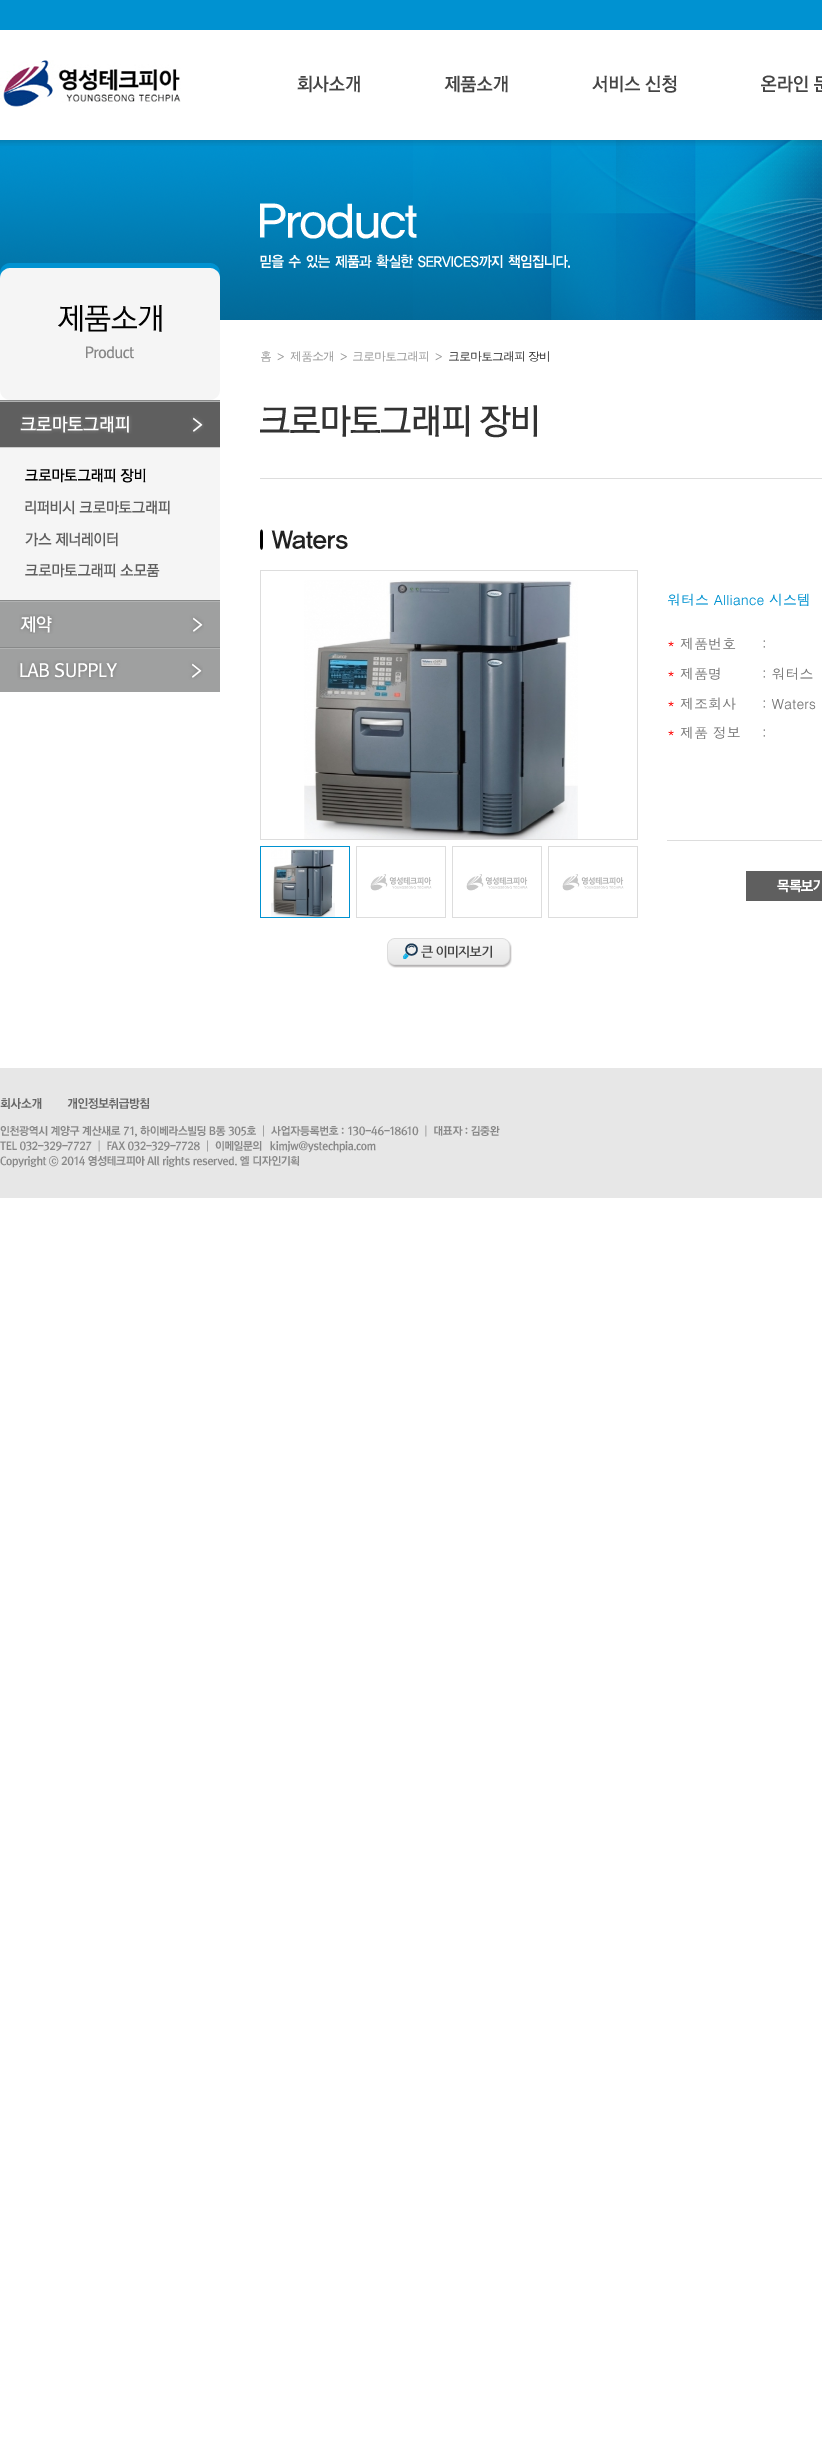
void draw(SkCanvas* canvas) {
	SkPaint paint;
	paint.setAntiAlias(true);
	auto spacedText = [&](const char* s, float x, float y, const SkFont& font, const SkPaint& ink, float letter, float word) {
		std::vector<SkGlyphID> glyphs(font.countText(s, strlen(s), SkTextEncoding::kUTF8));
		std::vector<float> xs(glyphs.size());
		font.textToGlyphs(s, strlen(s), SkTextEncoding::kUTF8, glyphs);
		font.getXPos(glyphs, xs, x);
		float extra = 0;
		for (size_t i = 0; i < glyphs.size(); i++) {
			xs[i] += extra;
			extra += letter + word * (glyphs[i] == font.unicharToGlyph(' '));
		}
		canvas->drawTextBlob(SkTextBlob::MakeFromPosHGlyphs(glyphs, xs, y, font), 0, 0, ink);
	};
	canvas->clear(0xffffffff);
	canvas->drawImageRect(SkImages::DeferredFromEncodedData(SkData::MakeFromFileName("img7.png")), SkRect::MakeXYWH(0, 140, 822, 180), SkSamplingOptions());
	canvas->drawImageRect(SkImages::DeferredFromEncodedData(SkData::MakeFromFileName("img1.png")), SkRect::MakeXYWH(0, 0, 822, 146), SkSamplingOptions());
	canvas->drawImageRect(SkImages::DeferredFromEncodedData(SkData::MakeFromFileName("img2.png")), SkRect::MakeXYWH(0, 60, 181, 47), SkSamplingOptions());
	canvas->drawImageRect(SkImages::DeferredFromEncodedData(SkData::MakeFromFileName("img3.png")), SkRect::MakeXYWH(297, 75, 63, 18), SkSamplingOptions());
	canvas->drawImageRect(SkImages::DeferredFromEncodedData(SkData::MakeFromFileName("img4.png")), SkRect::MakeXYWH(444, 75, 64, 18), SkSamplingOptions());
	canvas->drawImageRect(SkImages::DeferredFromEncodedData(SkData::MakeFromFileName("img5.png")), SkRect::MakeXYWH(592, 75, 85, 18), SkSamplingOptions());
	canvas->drawImageRect(SkImages::DeferredFromEncodedData(SkData::MakeFromFileName("img6.png")), SkRect::MakeXYWH(761, 75, 61, 18), SkSamplingOptions());
	canvas->drawImageRect(SkImages::DeferredFromEncodedData(SkData::MakeFromFileName("img8.png")), SkRect::MakeXYWH(0, 263, 220, 137), SkSamplingOptions());
	paint.setColor(0xff888989);
	canvas->drawRect(SkRect::MakeXYWH(0, 400, 220, 1), paint);
	paint.setColor(0xff5f5f5f);
	canvas->drawRect(SkRect::MakeXYWH(0, 402, 220, 45), paint);
	paint.setColor(0xffb1b2b2);
	canvas->drawRect(SkRect::MakeXYWH(0, 401, 220, 1), paint);
	paint.setColor(0xff888989);
	canvas->drawRect(SkRect::MakeXYWH(0, 600, 220, 1), paint);
	canvas->drawImageRect(SkImages::DeferredFromEncodedData(SkData::MakeFromFileName("img9.png")), SkRect::MakeXYWH(20, 414, 184, 20), SkSamplingOptions());
	paint.setColor(0xfff5f5f5);
	canvas->drawRect(SkRect::MakeXYWH(0, 448, 220, 152), paint);
	paint.setColor(0xffcccccc);
	canvas->drawRect(SkRect::MakeXYWH(0, 447, 220, 1), paint);
	canvas->drawImageRect(SkImages::DeferredFromEncodedData(SkData::MakeFromFileName("img10.png")), SkRect::MakeXYWH(25, 468, 121, 15), SkSamplingOptions());
	canvas->drawImageRect(SkImages::DeferredFromEncodedData(SkData::MakeFromFileName("img11.png")), SkRect::MakeXYWH(25, 500, 145, 15), SkSamplingOptions());
	canvas->drawImageRect(SkImages::DeferredFromEncodedData(SkData::MakeFromFileName("img12.png")), SkRect::MakeXYWH(25, 532, 93, 15), SkSamplingOptions());
	canvas->drawImageRect(SkImages::DeferredFromEncodedData(SkData::MakeFromFileName("img13.png")), SkRect::MakeXYWH(25, 563, 135, 15), SkSamplingOptions());
	paint.setColor(0xff9fa0a0);
	canvas->drawRect(SkRect::MakeXYWH(0, 602, 220, 45), paint);
	paint.setColor(0xffb1b2b2);
	canvas->drawRect(SkRect::MakeXYWH(0, 601, 220, 1), paint);
	paint.setColor(0xff888989);
	canvas->drawRect(SkRect::MakeXYWH(0, 647, 220, 1), paint);
	canvas->drawImageRect(SkImages::DeferredFromEncodedData(SkData::MakeFromFileName("img14.png")), SkRect::MakeXYWH(19, 614, 185, 20), SkSamplingOptions());
	paint.setColor(0xff9fa0a0);
	canvas->drawRect(SkRect::MakeXYWH(0, 649, 220, 43), paint);
	paint.setColor(0xffb1b2b2);
	canvas->drawRect(SkRect::MakeXYWH(0, 648, 220, 1), paint);
	canvas->drawImageRect(SkImages::DeferredFromEncodedData(SkData::MakeFromFileName("img15.png")), SkRect::MakeXYWH(17, 660, 186, 20), SkSamplingOptions());
	canvas->drawImageRect(SkImages::DeferredFromEncodedData(SkData::MakeFromFileName("img16.png")), SkRect::MakeXYWH(260, 203, 310, 65), SkSamplingOptions());
	SkFont f1(fontMgr->matchFamilyStyle("Dotum", SkFontStyle::Normal()), 12);
	f1.setSubpixel(true);
	paint.setColor(0xff999999);
	spacedText("홈", 260, 361, f1, paint, -1, 0);
	spacedText(">", 277, 361, f1, paint, -1, 0);
	spacedText("제품소개", 290, 361, f1, paint, -1, 0);
	spacedText(">", 340, 361, f1, paint, -1, 0);
	spacedText("크로마토그래피", 352, 361, f1, paint, -1, 0);
	spacedText(">", 435, 361, f1, paint, -1, 0);
	paint.setColor(0xff333333);
	spacedText("크로마토그래피 장비", 448, 361, f1, paint, -1, 0);
	paint.setColor(0xffdddddd);
	canvas->drawRect(SkRect::MakeXYWH(260, 478, 562, 1), paint);
	canvas->drawImageRect(SkImages::DeferredFromEncodedData(SkData::MakeFromFileName("img17.png")), SkRect::MakeXYWH(260, 405, 277, 33), SkSamplingOptions());
	canvas->drawImageRect(SkImages::DeferredFromEncodedData(SkData::MakeFromFileName("img18.png")), SkRect::MakeXYWH(260, 529, 88, 21), SkSamplingOptions());
	paint.setStroke(true);
	paint.setStrokeWidth(1);
	canvas->drawRect(SkRect::MakeXYWH(260.5, 570.5, 377, 269), paint);
	canvas->drawImageRect(SkImages::DeferredFromEncodedData(SkData::MakeFromFileName("img19.png")), SkRect::MakeXYWH(304, 580, 274, 259), SkSamplingOptions());
	paint.setColor(0xff0092d1);
	canvas->drawRect(SkRect::MakeXYWH(260.5, 846.5, 89, 71), paint);
	canvas->drawImageRect(SkImages::DeferredFromEncodedData(SkData::MakeFromFileName("img20.png")), SkRect::MakeXYWH(271, 849, 64, 68), SkSamplingOptions());
	paint.setColor(0xffdddddd);
	canvas->drawRect(SkRect::MakeXYWH(356.5, 846.5, 89, 71), paint);
	canvas->drawImageRect(SkImages::DeferredFromEncodedData(SkData::MakeFromFileName("img21.png")), SkRect::MakeXYWH(370, 874, 62, 17), SkSamplingOptions());
	canvas->drawRect(SkRect::MakeXYWH(452.5, 846.5, 89, 71), paint);
	canvas->drawImageRect(SkImages::DeferredFromEncodedData(SkData::MakeFromFileName("img21.png")), SkRect::MakeXYWH(466, 874, 62, 17), SkSamplingOptions());
	canvas->drawRect(SkRect::MakeXYWH(548.5, 846.5, 89, 71), paint);
	canvas->drawImageRect(SkImages::DeferredFromEncodedData(SkData::MakeFromFileName("img22.png")), SkRect::MakeXYWH(562, 874, 62, 17), SkSamplingOptions());
	canvas->drawImageRect(SkImages::DeferredFromEncodedData(SkData::MakeFromFileName("img23.png")), SkRect::MakeXYWH(387, 938, 125, 30), SkSamplingOptions());
	SkFont f2(fontMgr->matchFamilyStyle("Dotum", SkFontStyle::Normal()), 14);
	f2.setSubpixel(true);
	paint.setStroke(false);
	paint.setColor(0xff0092d1);
	canvas->drawString("워터스 Alliance 시스템", 667, 605, f2, paint);
	paint.setColor(0xffff0000);
	canvas->drawString("*", 667, 649, f2, paint);
	paint.setColor(0xff777777);
	canvas->drawString("제품번호", 680, 649, f2, paint);
	canvas->drawString(":", 762, 649, f2, paint);
	paint.setColor(0xffff0000);
	canvas->drawString("*", 667, 679, f2, paint);
	paint.setColor(0xff777777);
	canvas->drawString("제품명", 680, 679, f2, paint);
	canvas->drawString(": 워터스", 762, 679, f2, paint);
	paint.setColor(0xffff0000);
	canvas->drawString("*", 667, 709, f2, paint);
	paint.setColor(0xff777777);
	canvas->drawString("제조회사", 680, 709, f2, paint);
	canvas->drawString(": Waters", 762, 709, f2, paint);
	paint.setColor(0xffff0000);
	canvas->drawString("*", 667, 738, f2, paint);
	paint.setColor(0xff777777);
	canvas->drawString("제품 정보", 680, 738, f2, paint);
	canvas->drawString(":", 762, 738, f2, paint);
	paint.setColor(0xffdddddd);
	canvas->drawRect(SkRect::MakeXYWH(667, 840, 155, 1), paint);
	canvas->drawImageRect(SkImages::DeferredFromEncodedData(SkData::MakeFromFileName("img24.png")), SkRect::MakeXYWH(746, 871, 76, 30), SkSamplingOptions());
	paint.setColor(0xffe7e7e7);
	canvas->drawRect(SkRect::MakeXYWH(0, 1068, 822, 130), paint);
	canvas->drawImageRect(SkImages::DeferredFromEncodedData(SkData::MakeFromFileName("img25.png")), SkRect::MakeXYWH(0, 1098, 42, 11), SkSamplingOptions());
	canvas->drawImageRect(SkImages::DeferredFromEncodedData(SkData::MakeFromFileName("img26.png")), SkRect::MakeXYWH(67, 1098, 83, 11), SkSamplingOptions());
	canvas->drawImageRect(SkImages::DeferredFromEncodedData(SkData::MakeFromFileName("img27.png")), SkRect::MakeXYWH(0, 1125, 500, 43), SkSamplingOptions());
}
